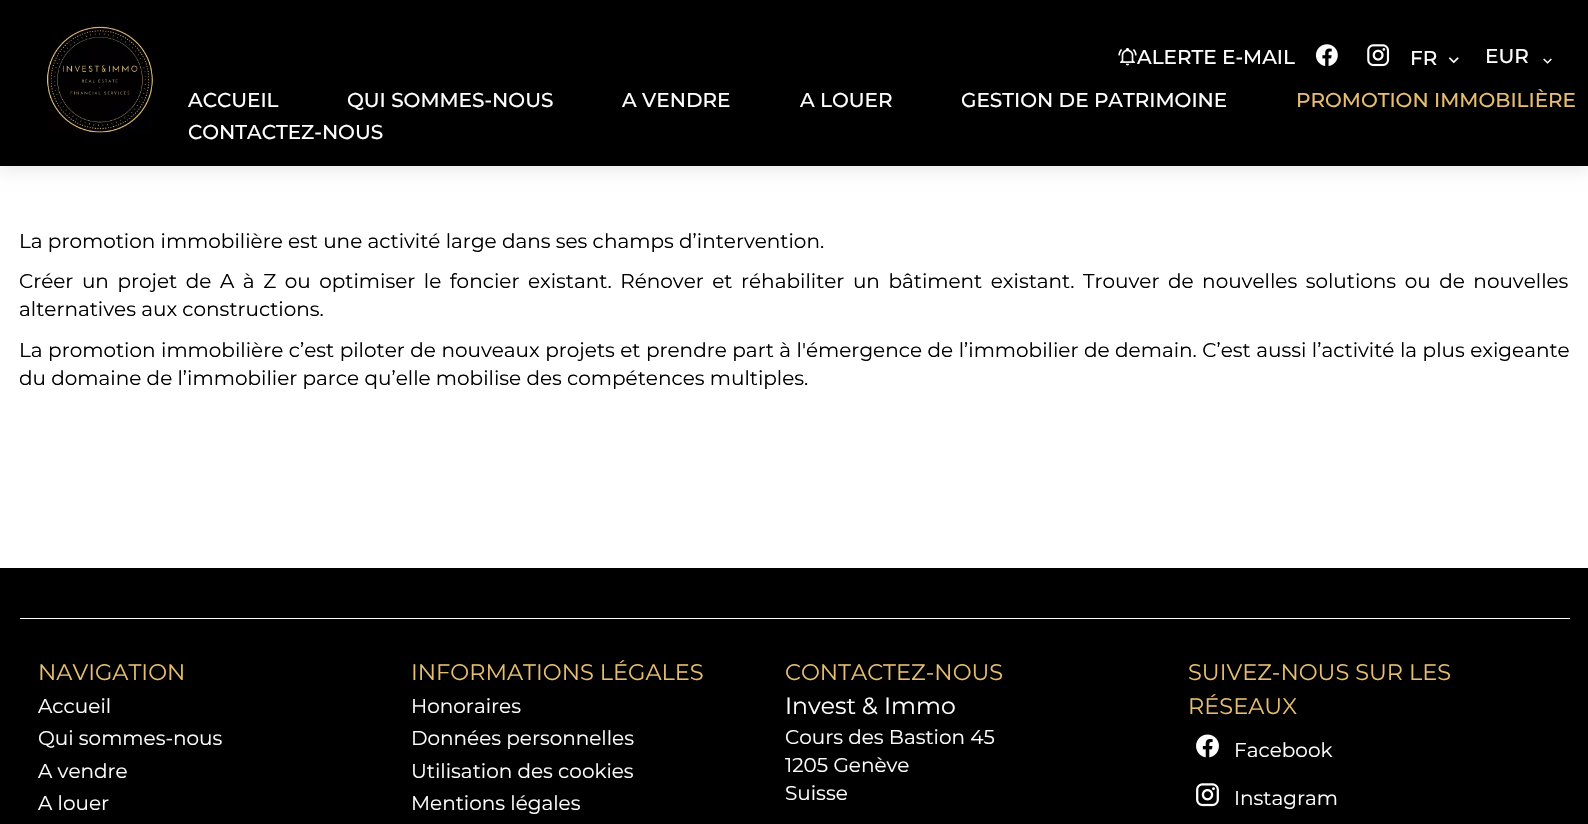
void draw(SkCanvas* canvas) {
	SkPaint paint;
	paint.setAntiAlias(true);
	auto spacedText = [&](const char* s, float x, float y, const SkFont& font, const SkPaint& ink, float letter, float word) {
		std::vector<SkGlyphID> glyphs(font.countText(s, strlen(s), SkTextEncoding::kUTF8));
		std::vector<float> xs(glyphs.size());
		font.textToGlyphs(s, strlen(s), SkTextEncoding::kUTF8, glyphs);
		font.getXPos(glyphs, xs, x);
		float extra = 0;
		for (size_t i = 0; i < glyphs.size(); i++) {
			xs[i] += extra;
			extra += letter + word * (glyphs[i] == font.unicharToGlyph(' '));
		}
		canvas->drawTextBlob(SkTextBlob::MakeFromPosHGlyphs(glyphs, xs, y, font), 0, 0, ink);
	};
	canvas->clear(0xffffffff);
	paint.setColor(0x14000000);
	paint.setMaskFilter(SkMaskFilter::MakeBlur(kNormal_SkBlurStyle, 7.5));
	canvas->drawRect(SkRect::MakeXYWH(0, 5, 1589, 166), paint);
	paint.setMaskFilter(nullptr);
	paint.setColor(0xff000000);
	canvas->drawRect(SkRect::MakeXYWH(0, 0, 1588, 166), paint);
	canvas->drawImageRect(SkImages::DeferredFromEncodedData(SkData::MakeFromFileName("img1.png")), SkRect::MakeXYWH(47, 26, 106, 108), SkSamplingOptions());
	canvas->drawImageRect(SkImages::DeferredFromEncodedData(SkData::MakeFromFileName("img2.png")), SkRect::MakeXYWH(1118, 47, 19, 19), SkSamplingOptions());
	SkFont f1(fontMgr->matchFamilyStyle("Montserrat", SkFontStyle(500, SkFontStyle::kNormal_Width, SkFontStyle::kUpright_Slant)), 20);
	f1.setSubpixel(true);
	paint.setColor(0xffffffff);
	canvas->drawString("ALERTE E-MAIL", 1137, 64, f1, paint);
	canvas->drawImageRect(SkImages::DeferredFromEncodedData(SkData::MakeFromFileName("img3.png")), SkRect::MakeXYWH(1315, 44, 23, 22), SkSamplingOptions());
	canvas->drawImageRect(SkImages::DeferredFromEncodedData(SkData::MakeFromFileName("img4.png")), SkRect::MakeXYWH(1367, 44, 23, 23), SkSamplingOptions());
	canvas->drawString("FR", 1410, 65, f1, paint);
	canvas->drawImageRect(SkImages::DeferredFromEncodedData(SkData::MakeFromFileName("img5.png")), SkRect::MakeXYWH(1448, 57, 11, 7), SkSamplingOptions());
	canvas->drawString("EUR", 1485, 63, f1, paint);
	canvas->drawImageRect(SkImages::DeferredFromEncodedData(SkData::MakeFromFileName("img6.png")), SkRect::MakeXYWH(1543, 58, 9, 6), SkSamplingOptions());
	canvas->drawString("ACCUEIL", 188, 107, f1, paint);
	canvas->drawString("QUI SOMMES-NOUS", 347, 107, f1, paint);
	canvas->drawString("A VENDRE", 622, 107, f1, paint);
	canvas->drawString("A LOUER", 800, 107, f1, paint);
	canvas->drawString("GESTION DE PATRIMOINE", 961, 107, f1, paint);
	paint.setColor(0xffe7bd70);
	canvas->drawString("PROMOTION IMMOBILIÈRE", 1296, 107, f1, paint);
	paint.setColor(0xffffffff);
	canvas->drawString("CONTACTEZ-NOUS", 188, 139, f1, paint);
	SkFont f2(fontMgr->matchFamilyStyle("Montserrat", SkFontStyle::Normal()), 20);
	f2.setSubpixel(true);
	paint.setColor(0xff000000);
	canvas->drawString("La promotion immobilière est une activité large dans ses champs d’intervention.", 19, 248, f2, paint);
	spacedText("Créer un projet de A à Z ou optimiser le foncier existant. Rénover et réhabiliter un bâtiment existant. Trouver de nouvelles solutions ou de nouvelles", 19, 288, f2, paint, 0, 3.3);
	canvas->drawString("alternatives aux constructions.", 19, 316, f2, paint);
	spacedText("La promotion immobilière c’est piloter de nouveaux projets et prendre part à l'émergence de l’immobilier de demain. C’est aussi l’activité la plus exigeante", 19, 357, f2, paint, 0, 0.25);
	canvas->drawString("du domaine de l’immobilier parce qu’elle mobilise des compétences multiples.", 19, 385, f2, paint);
	canvas->drawRect(SkRect::MakeXYWH(0, 568, 1588, 256), paint);
	paint.setColor(0xffffffff);
	canvas->drawRect(SkRect::MakeXYWH(20, 618, 1550, 1), paint);
	SkFont f3(fontMgr->matchFamilyStyle("Montserrat", SkFontStyle::Normal()), 22.5);
	f3.setSubpixel(true);
	paint.setColor(0xffe7bd70);
	canvas->drawString("NAVIGATION", 38, 680, f3, paint);
	paint.setColor(0xffffffff);
	canvas->drawString("Accueil", 38, 713, f2, paint);
	canvas->drawString("Qui sommes-nous", 38, 745, f2, paint);
	canvas->drawString("A vendre", 38, 778, f2, paint);
	canvas->drawString("A louer", 38, 810, f2, paint);
	paint.setColor(0xffe7bd70);
	canvas->drawString("INFORMATIONS LÉGALES", 411, 680, f3, paint);
	paint.setColor(0xffffffff);
	canvas->drawString("Honoraires", 411, 713, f2, paint);
	canvas->drawString("Données personnelles", 411, 745, f2, paint);
	canvas->drawString("Utilisation des cookies", 411, 778, f2, paint);
	canvas->drawString("Mentions légales", 411, 810, f2, paint);
	paint.setColor(0xffe7bd70);
	canvas->drawString("CONTACTEZ-NOUS", 785, 680, f3, paint);
	SkFont f4(fontMgr->matchFamilyStyle("Montserrat", SkFontStyle::Normal()), 23.5);
	f4.setSubpixel(true);
	paint.setColor(0xffffffff);
	canvas->drawString("Invest & Immo", 785, 714, f4, paint);
	canvas->drawString("Cours des Bastion 45", 785, 744, f2, paint);
	canvas->drawString("1205 Genève", 785, 772, f2, paint);
	canvas->drawString("Suisse", 785, 800, f2, paint);
	paint.setColor(0xffe7bd70);
	canvas->drawString("SUIVEZ-NOUS SUR LES", 1188, 680, f3, paint);
	canvas->drawString("RÉSEAUX", 1188, 714, f3, paint);
	canvas->drawImageRect(SkImages::DeferredFromEncodedData(SkData::MakeFromFileName("img7.png")), SkRect::MakeXYWH(1196, 734, 23, 24), SkSamplingOptions());
	paint.setColor(0xffffffff);
	canvas->drawString("Facebook", 1234, 757, f2, paint);
	canvas->drawImageRect(SkImages::DeferredFromEncodedData(SkData::MakeFromFileName("img8.png")), SkRect::MakeXYWH(1196, 783, 23, 24), SkSamplingOptions());
	canvas->drawString("Instagram", 1234, 805, f2, paint);
}
